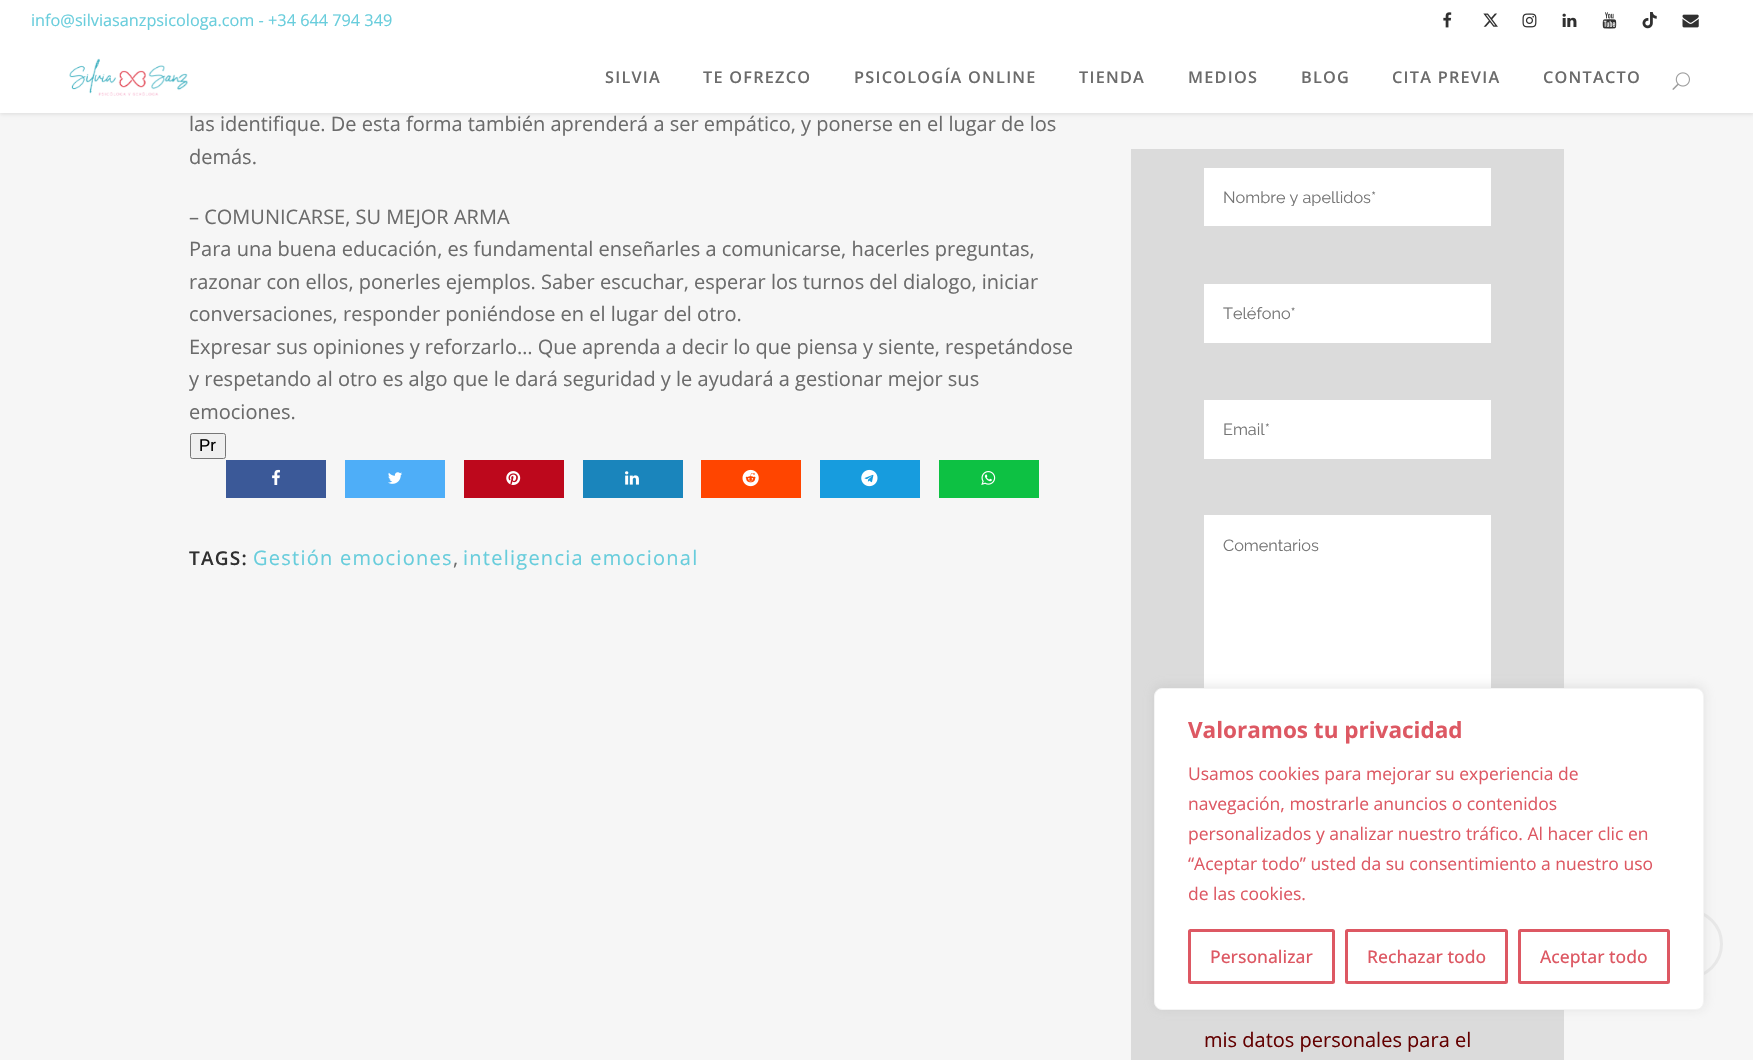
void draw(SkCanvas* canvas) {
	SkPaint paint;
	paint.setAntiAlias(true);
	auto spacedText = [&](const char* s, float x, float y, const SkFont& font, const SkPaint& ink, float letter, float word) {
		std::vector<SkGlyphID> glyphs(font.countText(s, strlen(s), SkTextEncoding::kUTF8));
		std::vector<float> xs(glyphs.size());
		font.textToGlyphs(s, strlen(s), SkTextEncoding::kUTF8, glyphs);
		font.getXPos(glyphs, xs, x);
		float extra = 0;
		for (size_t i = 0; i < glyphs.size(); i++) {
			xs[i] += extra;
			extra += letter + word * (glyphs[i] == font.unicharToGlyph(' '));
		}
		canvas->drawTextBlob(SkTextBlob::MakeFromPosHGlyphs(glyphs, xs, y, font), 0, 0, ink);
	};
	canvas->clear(0xfff6f6f6);
	paint.setColor(0x1c000000);
	paint.setMaskFilter(SkMaskFilter::MakeBlur(kNormal_SkBlurStyle, 2));
	canvas->drawRect(SkRect::MakeXYWH(0, 43, 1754, 71), paint);
	paint.setMaskFilter(nullptr);
	paint.setColor(0xffffffff);
	canvas->drawRect(SkRect::MakeXYWH(0, 0, 1753, 113), paint);
	SkFont f1(fontMgr->matchFamilyStyle("Open Sans", SkFontStyle::Normal()), 16.25);
	f1.setSubpixel(true);
	paint.setColor(0xff68cddc);
	canvas->drawString("info@silviasanzpsicologa.com - +34 644 794 349", 31, 26, f1, paint);
	canvas->drawImageRect(SkImages::DeferredFromEncodedData(SkData::MakeFromFileName("img1.png")), SkRect::MakeXYWH(1443, 12, 9, 16), SkSamplingOptions());
	canvas->drawImageRect(SkImages::DeferredFromEncodedData(SkData::MakeFromFileName("img2.png")), SkRect::MakeXYWH(1483, 13, 15, 14), SkSamplingOptions());
	canvas->drawImageRect(SkImages::DeferredFromEncodedData(SkData::MakeFromFileName("img3.png")), SkRect::MakeXYWH(1522, 13, 15, 15), SkSamplingOptions());
	canvas->drawImageRect(SkImages::DeferredFromEncodedData(SkData::MakeFromFileName("img4.png")), SkRect::MakeXYWH(1562, 13, 15, 14), SkSamplingOptions());
	canvas->drawImageRect(SkImages::DeferredFromEncodedData(SkData::MakeFromFileName("img5.png")), SkRect::MakeXYWH(1602, 12, 15, 17), SkSamplingOptions());
	canvas->drawImageRect(SkImages::DeferredFromEncodedData(SkData::MakeFromFileName("img6.png")), SkRect::MakeXYWH(1642, 12, 15, 17), SkSamplingOptions());
	canvas->drawImageRect(SkImages::DeferredFromEncodedData(SkData::MakeFromFileName("img7.png")), SkRect::MakeXYWH(1682, 14, 17, 14), SkSamplingOptions());
	canvas->drawImageRect(SkImages::DeferredFromEncodedData(SkData::MakeFromFileName("img8.png")), SkRect::MakeXYWH(69, 58, 119, 38), SkSamplingOptions());
	SkFont f2(fontMgr->matchFamilyStyle("Open Sans", SkFontStyle(600, SkFontStyle::kNormal_Width, SkFontStyle::kUpright_Slant)), 16.25);
	f2.setSubpixel(true);
	paint.setColor(0xff6b6b6b);
	spacedText("SILVIA", 605, 83, f2, paint, 1.25, 0);
	spacedText("TE OFREZCO", 703, 83, f2, paint, 1.25, 0);
	spacedText("PSICOLOGÍA ONLINE", 854, 83, f2, paint, 1.25, 0);
	spacedText("TIENDA", 1079, 83, f2, paint, 1.25, 0);
	spacedText("MEDIOS", 1188, 83, f2, paint, 1.25, 0);
	spacedText("BLOG", 1301, 83, f2, paint, 1.25, 0);
	spacedText("CITA PREVIA", 1392, 83, f2, paint, 1.25, 0);
	spacedText("CONTACTO", 1543, 83, f2, paint, 1.25, 0);
	canvas->drawImageRect(SkImages::DeferredFromEncodedData(SkData::MakeFromFileName("img9.png")), SkRect::MakeXYWH(1672, 72, 18, 18), SkSamplingOptions());
	SkFont f3(fontMgr->matchFamilyStyle("Open Sans", SkFontStyle::Normal()), 20);
	f3.setSubpixel(true);
	canvas->drawString("las identifique. De esta forma también aprenderá a ser empático, y ponerse en el lugar de los", 189, 131, f3, paint);
	canvas->drawString("demás.", 189, 164, f3, paint);
	canvas->drawString("– COMUNICARSE, SU MEJOR ARMA", 189, 224, f3, paint);
	canvas->drawString("Para una buena educación, es fundamental enseñarles a comunicarse, hacerles preguntas,", 189, 256, f3, paint);
	canvas->drawString("razonar con ellos, ponerles ejemplos. Saber escuchar, esperar los turnos del dialogo, iniciar", 189, 289, f3, paint);
	canvas->drawString("conversaciones, responder poniéndose en el lugar del otro.", 189, 321, f3, paint);
	canvas->drawString("Expresar sus opiniones y reforzarlo… Que aprenda a decir lo que piensa y siente, respetándose", 189, 354, f3, paint);
	canvas->drawString("y respetando al otro es algo que le dará seguridad y le ayudará a gestionar mejor sus", 189, 386, f3, paint);
	canvas->drawString("emociones.", 189, 419, f3, paint);
	paint.setColor(0xffefefef);
	canvas->drawRoundRect(SkRect::MakeXYWH(190.5, 433.5, 35, 25), 2, 2, paint);
	paint.setStroke(true);
	paint.setStrokeWidth(1);
	paint.setColor(0xff767676);
	canvas->drawRoundRect(SkRect::MakeXYWH(190.5, 433.5, 35, 25), 2, 2, paint);
	SkFont f4(fontMgr->matchFamilyStyle("Liberation Sans", SkFontStyle::Normal()), 17);
	f4.setSubpixel(true);
	paint.setStroke(false);
	paint.setColor(0xff000000);
	canvas->drawString("Pr", 199, 451, f4, paint);
	paint.setColor(0xff3b5998);
	canvas->drawRect(SkRect::MakeXYWH(226, 460, 100, 38), paint);
	canvas->drawImageRect(SkImages::DeferredFromEncodedData(SkData::MakeFromFileName("img10.png")), SkRect::MakeXYWH(272, 469, 8, 16), SkSamplingOptions());
	paint.setColor(0xff4eaef8);
	canvas->drawRect(SkRect::MakeXYWH(345, 460, 100, 38), paint);
	canvas->drawImageRect(SkImages::DeferredFromEncodedData(SkData::MakeFromFileName("img11.png")), SkRect::MakeXYWH(388, 472, 14, 12), SkSamplingOptions());
	paint.setColor(0xffbd081c);
	canvas->drawRect(SkRect::MakeXYWH(464, 460, 100, 38), paint);
	canvas->drawImageRect(SkImages::DeferredFromEncodedData(SkData::MakeFromFileName("img12.png")), SkRect::MakeXYWH(506, 471, 15, 14), SkSamplingOptions());
	paint.setColor(0xff1a85bc);
	canvas->drawRect(SkRect::MakeXYWH(583, 460, 100, 38), paint);
	canvas->drawImageRect(SkImages::DeferredFromEncodedData(SkData::MakeFromFileName("img13.png")), SkRect::MakeXYWH(625, 471, 14, 14), SkSamplingOptions());
	paint.setColor(0xffff4500);
	canvas->drawRect(SkRect::MakeXYWH(701, 460, 100, 38), paint);
	canvas->drawImageRect(SkImages::DeferredFromEncodedData(SkData::MakeFromFileName("img14.png")), SkRect::MakeXYWH(742, 469, 17, 18), SkSamplingOptions());
	paint.setColor(0xff179cde);
	canvas->drawRect(SkRect::MakeXYWH(820, 460, 100, 38), paint);
	canvas->drawImageRect(SkImages::DeferredFromEncodedData(SkData::MakeFromFileName("img15.png")), SkRect::MakeXYWH(861, 469, 17, 18), SkSamplingOptions());
	paint.setColor(0xff0dc143);
	canvas->drawRect(SkRect::MakeXYWH(939, 460, 100, 38), paint);
	canvas->drawImageRect(SkImages::DeferredFromEncodedData(SkData::MakeFromFileName("img16.png")), SkRect::MakeXYWH(981, 471, 15, 14), SkSamplingOptions());
	SkFont f5(fontMgr->matchFamilyStyle("Open Sans", SkFontStyle(600, SkFontStyle::kNormal_Width, SkFontStyle::kUpright_Slant)), 19);
	f5.setSubpixel(true);
	paint.setColor(0xff303030);
	spacedText("TAGS:", 189, 565, f5, paint, 1.25, 0);
	paint.setColor(0xff68cddc);
	spacedText("Gestión emociones", 253, 565, f3, paint, 1.25, 0);
	paint.setColor(0xff6b6b6b);
	canvas->drawString(",", 453, 565, f3, paint);
	paint.setColor(0xff68cddc);
	spacedText("inteligencia emocional", 463, 565, f3, paint, 1.25, 0);
	paint.setColor(0xffdbdbdb);
	canvas->drawRect(SkRect::MakeXYWH(1131, 149, 433, 911), paint);
	paint.setColor(0xffffffff);
	canvas->drawRect(SkRect::MakeXYWH(1204, 168, 287, 58), paint);
	canvas->save();
	canvas->clipRect(SkRect::MakeXYWH(1223, 188, 250, 18));
	SkFont f6(fontMgr->matchFamilyStyle("Raleway", SkFontStyle::Normal()), 16.25);
	f6.setSubpixel(true);
	paint.setColor(0xff757575);
	canvas->drawString("Nombre y apellidos*", 1223, 203, f6, paint);
	canvas->restore();
	paint.setColor(0xffffffff);
	canvas->drawRect(SkRect::MakeXYWH(1204, 284, 287, 59), paint);
	paint.setColor(0xff757575);
	canvas->drawString("Teléfono*", 1223, 319, f6, paint);
	paint.setColor(0xffffffff);
	canvas->drawRect(SkRect::MakeXYWH(1204, 400, 287, 59), paint);
	paint.setColor(0xff757575);
	canvas->drawString("Email*", 1223, 435, f6, paint);
	paint.setColor(0xffffffff);
	canvas->drawRect(SkRect::MakeXYWH(1204, 515, 287, 173), paint);
	paint.setColor(0xff757575);
	canvas->drawString("Comentarios", 1223, 551, f6, paint);
	paint.setColor(0xff630000);
	canvas->drawString("mis datos personales para el", 1204, 1047, f3, paint);
	paint.setStroke(true);
	paint.setStrokeWidth(3);
	paint.setColor(0xffe8e8e8);
	canvas->drawCircle(1688, 944, 33.5, paint);
	paint.setStroke(false);
	paint.setColor(0x4dacabab);
	paint.setMaskFilter(SkMaskFilter::MakeBlur(kNormal_SkBlurStyle, 6));
	canvas->drawRoundRect(SkRect::MakeXYWH(1154, 686, 550, 323), 8, 8, paint);
	paint.setMaskFilter(nullptr);
	paint.setColor(0xffffffff);
	canvas->drawRoundRect(SkRect::MakeXYWH(1154.5, 688.5, 549, 321), 7.5, 7.5, paint);
	paint.setStroke(true);
	paint.setStrokeWidth(1);
	paint.setColor(0xfff4f4f4);
	canvas->drawRoundRect(SkRect::MakeXYWH(1154.5, 688.5, 549, 321), 7.5, 7.5, paint);
	SkFont f7(fontMgr->matchFamilyStyle("Open Sans", SkFontStyle::Bold()), 22.5);
	f7.setSubpixel(true);
	paint.setStroke(false);
	paint.setColor(0xffdd5863);
	canvas->drawString("Valoramos tu privacidad", 1188, 738, f7, paint);
	SkFont f8(fontMgr->matchFamilyStyle("Open Sans", SkFontStyle::Normal()), 17.5);
	f8.setSubpixel(true);
	canvas->drawString("Usamos cookies para mejorar su experiencia de", 1188, 780, f8, paint);
	canvas->drawString("navegación, mostrarle anuncios o contenidos", 1188, 810, f8, paint);
	canvas->drawString("personalizados y analizar nuestro tráfico. Al hacer clic en", 1188, 840, f8, paint);
	canvas->drawString("“Aceptar todo” usted da su consentimiento a nuestro uso", 1188, 870, f8, paint);
	canvas->drawString("de las cookies.", 1188, 900, f8, paint);
	paint.setStroke(true);
	paint.setStrokeWidth(3);
	canvas->drawRoundRect(SkRect::MakeXYWH(1189.5, 930.5, 144, 52), 1, 1, paint);
	SkFont f9(fontMgr->matchFamilyStyle("Open Sans", SkFontStyle(500, SkFontStyle::kNormal_Width, SkFontStyle::kUpright_Slant)), 17.5);
	f9.setSubpixel(true);
	paint.setStroke(false);
	canvas->drawString("Personalizar", 1210, 963, f9, paint);
	paint.setStroke(true);
	canvas->drawRoundRect(SkRect::MakeXYWH(1346.5, 930.5, 160, 52), 1, 1, paint);
	paint.setStroke(false);
	canvas->drawString("Rechazar todo", 1367, 963, f9, paint);
	paint.setStroke(true);
	canvas->drawRoundRect(SkRect::MakeXYWH(1519.5, 930.5, 149, 52), 1, 1, paint);
	paint.setStroke(false);
	canvas->drawString("Aceptar todo", 1540, 963, f9, paint);
}
